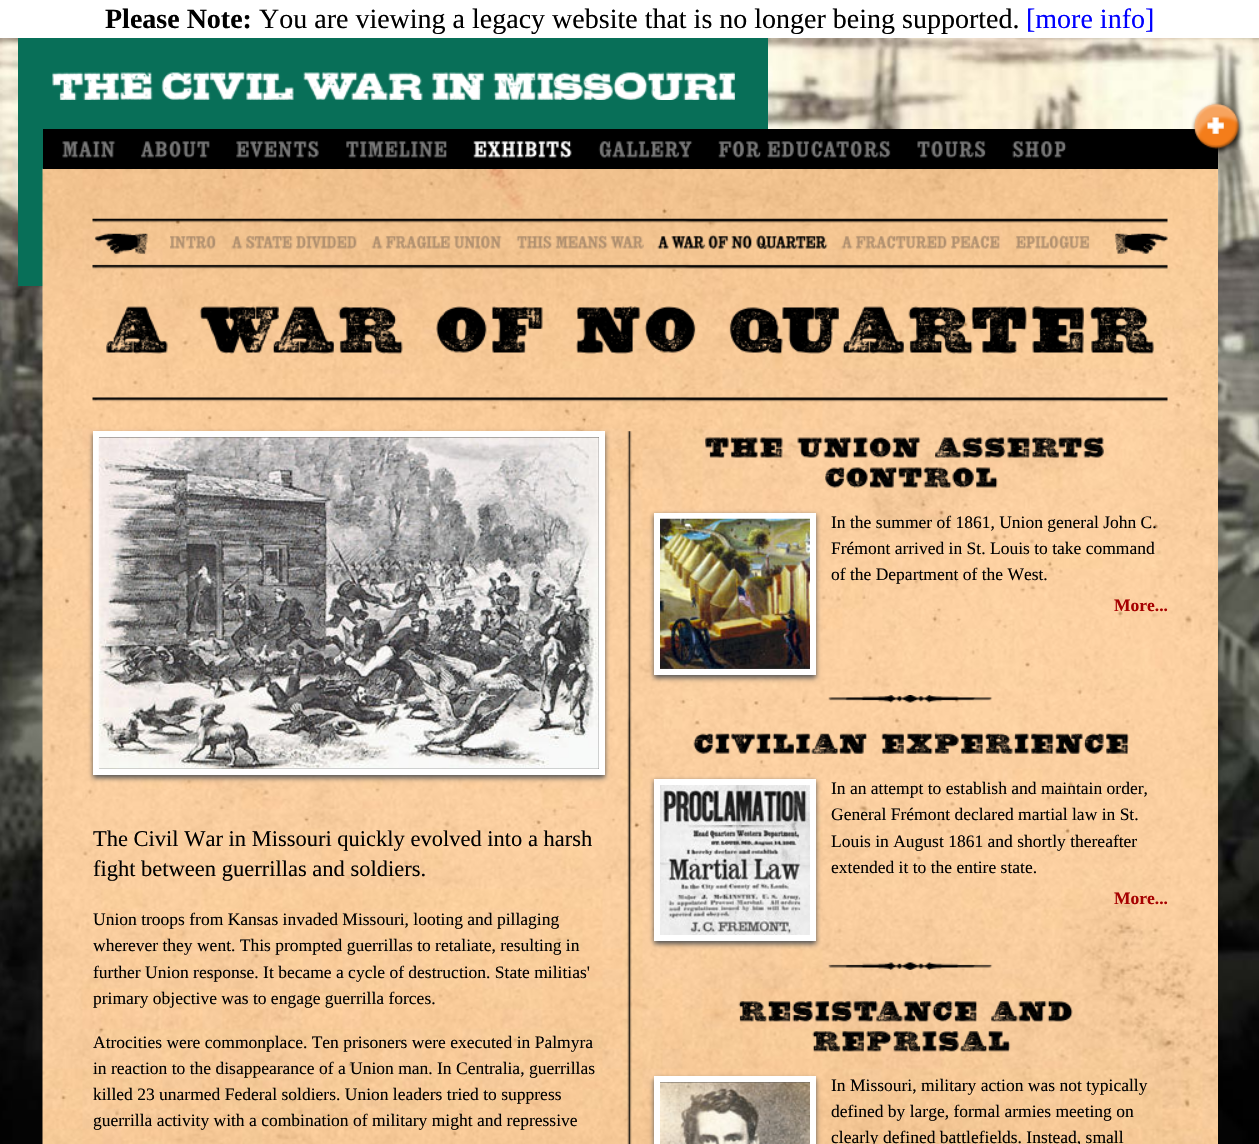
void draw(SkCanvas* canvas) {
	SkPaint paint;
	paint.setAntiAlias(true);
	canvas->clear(0xffffffff);
	canvas->drawImageRect(SkImages::DeferredFromEncodedData(SkData::MakeFromFileName("img1.png")), SkRect::MakeXYWH(0, 38, 1259, 1106), SkSamplingOptions());
	SkFont f1(fontMgr->matchFamilyStyle("Liberation Serif", SkFontStyle::Bold()), 28);
	f1.setSubpixel(true);
	paint.setColor(0xff000000);
	canvas->drawString("Please Note:", 105, 28, f1, paint);
	SkFont f2(fontMgr->matchFamilyStyle("Liberation Serif", SkFontStyle::Normal()), 28);
	f2.setSubpixel(true);
	canvas->drawString("You are viewing a legacy website that is no longer being supported.", 259, 28, f2, paint);
	paint.setColor(0xff0000ff);
	canvas->drawString("[more info]", 1026, 28, f2, paint);
	paint.setColor(0xff086f58);
	canvas->drawRect(SkRect::MakeXYWH(18, 38, 25, 248), paint);
	canvas->drawRect(SkRect::MakeXYWH(43, 38, 725, 91), paint);
	canvas->drawImageRect(SkImages::DeferredFromEncodedData(SkData::MakeFromFileName("img2.png")), SkRect::MakeXYWH(52, 72, 683, 28), SkSamplingOptions());
	paint.setColor(0xffface9d);
	canvas->drawRect(SkRect::MakeXYWH(1217, 169, 1, 975), paint);
	canvas->drawImageRect(SkImages::DeferredFromEncodedData(SkData::MakeFromFileName("img13.png")), SkRect::MakeXYWH(42, 168, 1176, 976), SkSamplingOptions());
	paint.setColor(0xff000000);
	canvas->drawRect(SkRect::MakeXYWH(43, 129, 1175, 40), paint);
	canvas->drawImageRect(SkImages::DeferredFromEncodedData(SkData::MakeFromFileName("img3.png")), SkRect::MakeXYWH(1191, 102, 53, 53), SkSamplingOptions());
	canvas->drawImageRect(SkImages::DeferredFromEncodedData(SkData::MakeFromFileName("img4.png")), SkRect::MakeXYWH(62, 141, 54, 17), SkSamplingOptions());
	canvas->drawImageRect(SkImages::DeferredFromEncodedData(SkData::MakeFromFileName("img5.png")), SkRect::MakeXYWH(140, 141, 70, 17), SkSamplingOptions());
	canvas->drawImageRect(SkImages::DeferredFromEncodedData(SkData::MakeFromFileName("img6.png")), SkRect::MakeXYWH(236, 141, 83, 17), SkSamplingOptions());
	canvas->drawImageRect(SkImages::DeferredFromEncodedData(SkData::MakeFromFileName("img7.png")), SkRect::MakeXYWH(346, 141, 101, 17), SkSamplingOptions());
	canvas->drawImageRect(SkImages::DeferredFromEncodedData(SkData::MakeFromFileName("img8.png")), SkRect::MakeXYWH(473, 141, 99, 17), SkSamplingOptions());
	canvas->drawImageRect(SkImages::DeferredFromEncodedData(SkData::MakeFromFileName("img9.png")), SkRect::MakeXYWH(598, 141, 95, 17), SkSamplingOptions());
	canvas->drawImageRect(SkImages::DeferredFromEncodedData(SkData::MakeFromFileName("img10.png")), SkRect::MakeXYWH(718, 141, 173, 17), SkSamplingOptions());
	canvas->drawImageRect(SkImages::DeferredFromEncodedData(SkData::MakeFromFileName("img11.png")), SkRect::MakeXYWH(917, 141, 69, 17), SkSamplingOptions());
	canvas->drawImageRect(SkImages::DeferredFromEncodedData(SkData::MakeFromFileName("img12.png")), SkRect::MakeXYWH(1012, 141, 55, 17), SkSamplingOptions());
	canvas->drawImageRect(SkImages::DeferredFromEncodedData(SkData::MakeFromFileName("img14.png")), SkRect::MakeXYWH(92, 218, 1076, 51), SkSamplingOptions());
	canvas->drawImageRect(SkImages::DeferredFromEncodedData(SkData::MakeFromFileName("img15.png")), SkRect::MakeXYWH(94, 233, 54, 21), SkSamplingOptions());
	canvas->drawImageRect(SkImages::DeferredFromEncodedData(SkData::MakeFromFileName("img16.png")), SkRect::MakeXYWH(170, 235, 46, 14), SkSamplingOptions());
	canvas->drawImageRect(SkImages::DeferredFromEncodedData(SkData::MakeFromFileName("img17.png")), SkRect::MakeXYWH(231, 235, 126, 14), SkSamplingOptions());
	canvas->drawImageRect(SkImages::DeferredFromEncodedData(SkData::MakeFromFileName("img18.png")), SkRect::MakeXYWH(371, 235, 131, 14), SkSamplingOptions());
	canvas->drawImageRect(SkImages::DeferredFromEncodedData(SkData::MakeFromFileName("img19.png")), SkRect::MakeXYWH(516, 235, 128, 14), SkSamplingOptions());
	canvas->drawImageRect(SkImages::DeferredFromEncodedData(SkData::MakeFromFileName("img20.png")), SkRect::MakeXYWH(657, 235, 171, 14), SkSamplingOptions());
	canvas->drawImageRect(SkImages::DeferredFromEncodedData(SkData::MakeFromFileName("img21.png")), SkRect::MakeXYWH(841, 235, 159, 14), SkSamplingOptions());
	canvas->drawImageRect(SkImages::DeferredFromEncodedData(SkData::MakeFromFileName("img22.png")), SkRect::MakeXYWH(1016, 235, 74, 14), SkSamplingOptions());
	canvas->drawImageRect(SkImages::DeferredFromEncodedData(SkData::MakeFromFileName("img23.png")), SkRect::MakeXYWH(1114, 233, 54, 21), SkSamplingOptions());
	canvas->drawImageRect(SkImages::DeferredFromEncodedData(SkData::MakeFromFileName("img24.png")), SkRect::MakeXYWH(92, 397, 1076, 5), SkSamplingOptions());
	canvas->drawImageRect(SkImages::DeferredFromEncodedData(SkData::MakeFromFileName("img25.png")), SkRect::MakeXYWH(106, 306, 1048, 48), SkSamplingOptions());
	paint.setColor(0xff555555);
	paint.setMaskFilter(SkMaskFilter::MakeBlur(kNormal_SkBlurStyle, 2.5));
	canvas->drawRect(SkRect::MakeXYWH(93, 434, 512, 344), paint);
	paint.setMaskFilter(nullptr);
	paint.setStroke(true);
	paint.setStrokeWidth(6);
	paint.setColor(0xffffffff);
	canvas->drawRect(SkRect::MakeXYWH(96, 434, 506, 338), paint);
	canvas->drawImageRect(SkImages::DeferredFromEncodedData(SkData::MakeFromFileName("img26.png")), SkRect::MakeXYWH(98, 437, 501, 332), SkSamplingOptions());
	SkFont f3(fontMgr->matchFamilyStyle("Liberation Serif", SkFontStyle::Normal()), 22.5);
	f3.setSubpixel(true);
	paint.setStroke(false);
	paint.setColor(0xff000000);
	canvas->drawString("The Civil War in Missouri quickly evolved into a harsh", 93, 846, f3, paint);
	canvas->drawString("fight between guerrillas and soldiers.", 93, 876, f3, paint);
	SkFont f4(fontMgr->matchFamilyStyle("Liberation Serif", SkFontStyle::Normal()), 17.5);
	f4.setSubpixel(true);
	canvas->drawString("Union troops from Kansas invaded Missouri, looting and pillaging", 93, 925, f4, paint);
	canvas->drawString("wherever they went. This prompted guerrillas to retaliate, resulting in", 93, 951, f4, paint);
	canvas->drawString("further Union response. It became a cycle of destruction. State militias'", 93, 978, f4, paint);
	canvas->drawString("primary objective was to engage guerrilla forces.", 93, 1004, f4, paint);
	canvas->drawString("Atrocities were commonplace. Ten prisoners were executed in Palmyra", 93, 1048, f4, paint);
	canvas->drawString("in reaction to the disappearance of a Union man. In Centralia, guerrillas", 93, 1074, f4, paint);
	canvas->drawString("killed 23 unarmed Federal soldiers. Union leaders tried to suppress", 93, 1100, f4, paint);
	canvas->drawString("guerrilla activity with a combination of military might and repressive", 93, 1126, f4, paint);
	canvas->drawImageRect(SkImages::DeferredFromEncodedData(SkData::MakeFromFileName("img27.png")), SkRect::MakeXYWH(627, 431, 5, 713), SkSamplingOptions());
	canvas->drawImageRect(SkImages::DeferredFromEncodedData(SkData::MakeFromFileName("img28.png")), SkRect::MakeXYWH(705, 437, 78, 21), SkSamplingOptions());
	canvas->drawImageRect(SkImages::DeferredFromEncodedData(SkData::MakeFromFileName("img29.png")), SkRect::MakeXYWH(797, 437, 124, 21), SkSamplingOptions());
	canvas->drawImageRect(SkImages::DeferredFromEncodedData(SkData::MakeFromFileName("img30.png")), SkRect::MakeXYWH(935, 437, 169, 21), SkSamplingOptions());
	canvas->drawImageRect(SkImages::DeferredFromEncodedData(SkData::MakeFromFileName("img31.png")), SkRect::MakeXYWH(825, 467, 173, 21), SkSamplingOptions());
	paint.setColor(0xff555555);
	paint.setMaskFilter(SkMaskFilter::MakeBlur(kNormal_SkBlurStyle, 2.5));
	canvas->drawRect(SkRect::MakeXYWH(654, 515, 162, 163), paint);
	paint.setMaskFilter(nullptr);
	paint.setStroke(true);
	paint.setColor(0xffffffff);
	canvas->drawRect(SkRect::MakeXYWH(657, 516, 156, 156), paint);
	canvas->drawImageRect(SkImages::DeferredFromEncodedData(SkData::MakeFromFileName("img32.png")), SkRect::MakeXYWH(660, 518, 150, 151), SkSamplingOptions());
	paint.setStroke(false);
	paint.setColor(0xff000000);
	canvas->drawString("In the summer of 1861, Union general John C.", 831, 528, f4, paint);
	canvas->drawString("Frémont arrived in St. Louis to take command", 831, 554, f4, paint);
	canvas->drawString("of the Department of the West.", 831, 580, f4, paint);
	SkFont f5(fontMgr->matchFamilyStyle("Liberation Serif", SkFontStyle::Bold()), 17.5);
	f5.setSubpixel(true);
	paint.setColor(0xffa60000);
	canvas->drawString("More...", 1114, 611, f5, paint);
	canvas->drawImageRect(SkImages::DeferredFromEncodedData(SkData::MakeFromFileName("img33.png")), SkRect::MakeXYWH(828, 695, 165, 8), SkSamplingOptions());
	canvas->drawImageRect(SkImages::DeferredFromEncodedData(SkData::MakeFromFileName("img34.png")), SkRect::MakeXYWH(693, 733, 174, 21), SkSamplingOptions());
	canvas->drawImageRect(SkImages::DeferredFromEncodedData(SkData::MakeFromFileName("img35.png")), SkRect::MakeXYWH(881, 733, 248, 21), SkSamplingOptions());
	paint.setColor(0xff555555);
	paint.setMaskFilter(SkMaskFilter::MakeBlur(kNormal_SkBlurStyle, 2.5));
	canvas->drawRect(SkRect::MakeXYWH(654, 781, 162, 163), paint);
	paint.setMaskFilter(nullptr);
	paint.setStroke(true);
	paint.setColor(0xffffffff);
	canvas->drawRect(SkRect::MakeXYWH(657, 782, 156, 156), paint);
	canvas->drawImageRect(SkImages::DeferredFromEncodedData(SkData::MakeFromFileName("img36.png")), SkRect::MakeXYWH(660, 785, 150, 150), SkSamplingOptions());
	paint.setStroke(false);
	paint.setColor(0xff000000);
	canvas->drawString("In an attempt to establish and maintain order,", 831, 794, f4, paint);
	canvas->drawString("General Frémont declared martial law in St.", 831, 820, f4, paint);
	canvas->drawString("Louis in August 1861 and shortly thereafter", 831, 847, f4, paint);
	canvas->drawString("extended it to the entire state.", 831, 873, f4, paint);
	paint.setColor(0xffa60000);
	canvas->drawString("More...", 1114, 904, f5, paint);
	canvas->drawImageRect(SkImages::DeferredFromEncodedData(SkData::MakeFromFileName("img37.png")), SkRect::MakeXYWH(828, 962, 165, 8), SkSamplingOptions());
	canvas->drawImageRect(SkImages::DeferredFromEncodedData(SkData::MakeFromFileName("img38.png")), SkRect::MakeXYWH(738, 1001, 239, 21), SkSamplingOptions());
	canvas->drawImageRect(SkImages::DeferredFromEncodedData(SkData::MakeFromFileName("img39.png")), SkRect::MakeXYWH(991, 1001, 82, 21), SkSamplingOptions());
	canvas->drawImageRect(SkImages::DeferredFromEncodedData(SkData::MakeFromFileName("img40.png")), SkRect::MakeXYWH(812, 1031, 199, 21), SkSamplingOptions());
	paint.setColor(0xff555555);
	paint.setMaskFilter(SkMaskFilter::MakeBlur(kNormal_SkBlurStyle, 2.5));
	canvas->drawRect(SkRect::MakeXYWH(654, 1079, 162, 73), paint);
	paint.setMaskFilter(nullptr);
	paint.setStroke(true);
	paint.setColor(0xffffffff);
	canvas->drawRect(SkRect::MakeXYWH(657, 1079, 156, 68), paint);
	canvas->drawImageRect(SkImages::DeferredFromEncodedData(SkData::MakeFromFileName("img41.png")), SkRect::MakeXYWH(660, 1082, 150, 62), SkSamplingOptions());
	paint.setStroke(false);
	paint.setColor(0xff000000);
	canvas->drawString("In Missouri, military action was not typically", 831, 1091, f4, paint);
	canvas->drawString("defined by large, formal armies meeting on", 831, 1117, f4, paint);
	canvas->drawString("clearly defined battlefields. Instead, small", 831, 1143, f4, paint);
}
